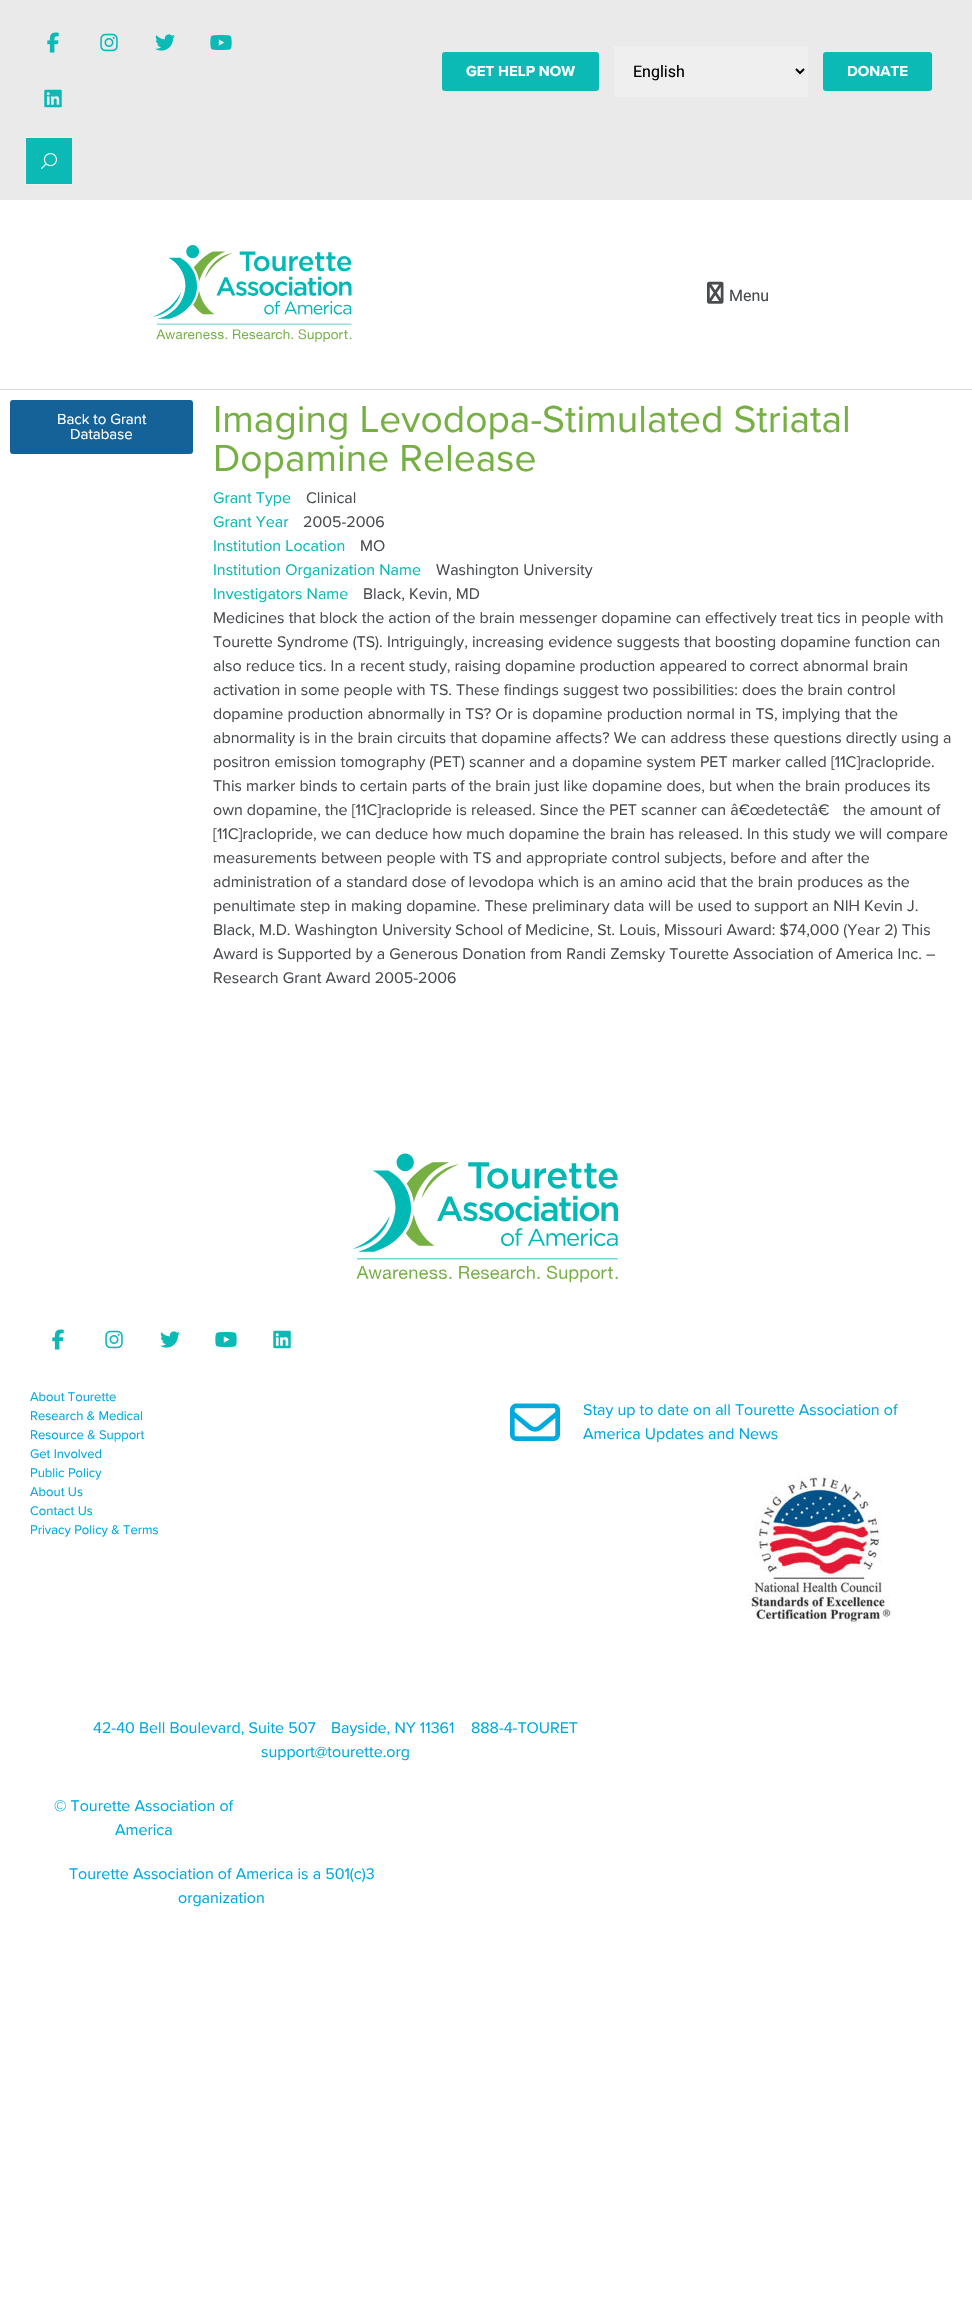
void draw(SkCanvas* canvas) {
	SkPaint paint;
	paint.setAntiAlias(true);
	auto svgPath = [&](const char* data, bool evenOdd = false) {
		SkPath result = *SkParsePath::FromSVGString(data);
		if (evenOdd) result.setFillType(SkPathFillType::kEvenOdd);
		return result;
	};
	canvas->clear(0xffffffff);
	paint.setColor(0xffeaeaea);
	canvas->drawRect(SkRect::MakeXYWH(0, 0, 972, 200), paint);
	canvas->drawImageRect(SkImages::DeferredFromEncodedData(SkData::MakeFromFileName("img1.png")), SkRect::MakeXYWH(47, 32, 12, 21), SkSamplingOptions());
	canvas->drawImageRect(SkImages::DeferredFromEncodedData(SkData::MakeFromFileName("img2.png")), SkRect::MakeXYWH(100, 33, 18, 19), SkSamplingOptions());
	canvas->drawImageRect(SkImages::DeferredFromEncodedData(SkData::MakeFromFileName("img3.png")), SkRect::MakeXYWH(155, 34, 20, 17), SkSamplingOptions());
	canvas->drawImageRect(SkImages::DeferredFromEncodedData(SkData::MakeFromFileName("img4.png")), SkRect::MakeXYWH(210, 35, 22, 15), SkSamplingOptions());
	canvas->drawImageRect(SkImages::DeferredFromEncodedData(SkData::MakeFromFileName("img5.png")), SkRect::MakeXYWH(44, 89, 18, 19), SkSamplingOptions());
	paint.setColor(0xff0bbab4);
	canvas->drawRoundRect(SkRect::MakeXYWH(442, 52, 157, 39), 3, 3, paint);
	SkFont f1(fontMgr->matchFamilyStyle("Proxima Nova", SkFontStyle::Bold()), 15);
	f1.setSubpixel(true);
	paint.setColor(0xffffffff);
	canvas->drawString("GET HELP NOW", 466, 76, f1, paint);
	paint.setColor(0xffefefef);
	canvas->drawRect(SkRect::MakeXYWH(614, 46, 194, 51), paint);
	paint.setStroke(true);
	paint.setStrokeWidth(2);
	paint.setColor(0xff000000);
	canvas->drawPath(svgPath("M796 69L800 73L804 69"), paint);
	SkFont f2(fontMgr->matchFamilyStyle("Roboto", SkFontStyle::Normal()), 16);
	f2.setSubpixel(true);
	paint.setStroke(false);
	canvas->drawString("English", 633, 77, f2, paint);
	paint.setColor(0xff0bbab4);
	canvas->drawRoundRect(SkRect::MakeXYWH(823, 52, 109, 39), 3, 3, paint);
	paint.setColor(0xffffffff);
	canvas->drawString("DONATE", 847, 76, f1, paint);
	paint.setColor(0xff0bbab4);
	canvas->drawRect(SkRect::MakeXYWH(25.5, 137.5, 47, 47), paint);
	paint.setStroke(true);
	paint.setStrokeWidth(1);
	paint.setColor(0xffeceeef);
	canvas->drawRect(SkRect::MakeXYWH(25.5, 137.5, 47, 47), paint);
	canvas->drawImageRect(SkImages::DeferredFromEncodedData(SkData::MakeFromFileName("img6.png")), SkRect::MakeXYWH(41, 153, 16, 16), SkSamplingOptions());
	paint.setStroke(false);
	paint.setColor(0xffd8d8d8);
	canvas->drawRect(SkRect::MakeXYWH(0, 389, 972, 1), paint);
	canvas->drawImageRect(SkImages::DeferredFromEncodedData(SkData::MakeFromFileName("img7.png")), SkRect::MakeXYWH(153, 245, 199, 97), SkSamplingOptions());
	canvas->drawImageRect(SkImages::DeferredFromEncodedData(SkData::MakeFromFileName("img8.png")), SkRect::MakeXYWH(707, 281, 17, 23), SkSamplingOptions());
	paint.setColor(0xff494c4f);
	canvas->drawString("Menu", 729, 301, f2, paint);
	paint.setColor(0xff156299);
	canvas->drawRoundRect(SkRect::MakeXYWH(10, 400, 183, 54), 3, 3, paint);
	SkFont f3(fontMgr->matchFamilyStyle("Proxima Nova", SkFontStyle::Normal()), 15);
	f3.setSubpixel(true);
	paint.setColor(0xffffffff);
	canvas->drawString("Back to Grant", 57, 424, f3, paint);
	canvas->drawString("Database", 70, 439, f3, paint);
	SkFont f4(fontMgr->matchFamilyStyle("Proxima Nova", SkFontStyle::Normal()), 39);
	f4.setSubpixel(true);
	paint.setColor(0xff76b043);
	canvas->drawString("Imaging Levodopa-Stimulated Striatal", 213, 432, f4, paint);
	canvas->drawString("Dopamine Release", 213, 471, f4, paint);
	SkFont f5(fontMgr->matchFamilyStyle("Proxima Nova", SkFontStyle::Normal()), 16);
	f5.setSubpixel(true);
	paint.setColor(0xff0bbab4);
	canvas->drawString("Grant Type", 213, 503, f5, paint);
	paint.setColor(0xff494c4f);
	canvas->drawString("Clinical", 306, 503, f5, paint);
	paint.setColor(0xff0bbab4);
	canvas->drawString("Grant Year", 213, 527, f5, paint);
	paint.setColor(0xff494c4f);
	canvas->drawString("2005-2006", 303, 527, f5, paint);
	paint.setColor(0xff0bbab4);
	canvas->drawString("Institution Location", 213, 551, f5, paint);
	paint.setColor(0xff494c4f);
	canvas->drawString("MO", 360, 551, f5, paint);
	paint.setColor(0xff0bbab4);
	canvas->drawString("Institution Organization Name", 213, 575, f5, paint);
	paint.setColor(0xff494c4f);
	canvas->drawString("Washington University", 436, 575, f5, paint);
	paint.setColor(0xff0bbab4);
	canvas->drawString("Investigators Name", 213, 599, f5, paint);
	paint.setColor(0xff494c4f);
	canvas->drawString("Black, Kevin, MD", 363, 599, f5, paint);
	canvas->drawString("Medicines that block the action of the brain messenger dopamine can effectively treat tics in people with", 213, 623, f5, paint);
	canvas->drawString("Tourette Syndrome (TS). Intriguingly, increasing evidence suggests that boosting dopamine function can", 213, 647, f5, paint);
	canvas->drawString("also reduce tics. In a recent study, raising dopamine production appeared to correct abnormal brain", 213, 671, f5, paint);
	canvas->drawString("activation in some people with TS. These findings suggest two possibilities: does the brain control", 213, 695, f5, paint);
	canvas->drawString("dopamine production abnormally in TS? Or is dopamine production normal in TS, implying that the", 213, 719, f5, paint);
	canvas->drawString("abnormality is in the brain circuits that dopamine affects? We can address these questions directly using a", 213, 743, f5, paint);
	canvas->drawString("positron emission tomography (PET) scanner and a dopamine system PET marker called [11C]raclopride.", 213, 767, f5, paint);
	canvas->drawString("This marker binds to certain parts of the brain just like dopamine does, but when the brain produces its", 213, 791, f5, paint);
	canvas->drawString("own dopamine, the [11C]raclopride is released. Since the PET scanner can â€œdetectâ€", 213, 815, f5, paint);
	canvas->drawString("the amount of", 843, 815, f5, paint);
	canvas->drawString("[11C]raclopride, we can deduce how much dopamine the brain has released. In this study we will compare", 213, 839, f5, paint);
	canvas->drawString("measurements between people with TS and appropriate control subjects, before and after the", 213, 863, f5, paint);
	canvas->drawString("administration of a standard dose of levodopa which is an amino acid that the brain produces as the", 213, 887, f5, paint);
	canvas->drawString("penultimate step in making dopamine. These preliminary data will be used to support an NIH Kevin J.", 213, 911, f5, paint);
	canvas->drawString("Black, M.D. Washington University School of Medicine, St. Louis, Missouri Award: $74,000 (Year 2) This", 213, 935, f5, paint);
	canvas->drawString("Award is Supported by a Generous Donation from Randi Zemsky Tourette Association of America Inc. –", 213, 959, f5, paint);
	canvas->drawString("Research Grant Award 2005-2006", 213, 983, f5, paint);
	canvas->drawImageRect(SkImages::DeferredFromEncodedData(SkData::MakeFromFileName("img9.png")), SkRect::MakeXYWH(353, 1153, 265, 130), SkSamplingOptions());
	canvas->drawImageRect(SkImages::DeferredFromEncodedData(SkData::MakeFromFileName("img10.png")), SkRect::MakeXYWH(52, 1329, 12, 21), SkSamplingOptions());
	canvas->drawImageRect(SkImages::DeferredFromEncodedData(SkData::MakeFromFileName("img11.png")), SkRect::MakeXYWH(105, 1330, 18, 19), SkSamplingOptions());
	canvas->drawImageRect(SkImages::DeferredFromEncodedData(SkData::MakeFromFileName("img12.png")), SkRect::MakeXYWH(160, 1331, 20, 17), SkSamplingOptions());
	canvas->drawImageRect(SkImages::DeferredFromEncodedData(SkData::MakeFromFileName("img13.png")), SkRect::MakeXYWH(215, 1332, 22, 15), SkSamplingOptions());
	canvas->drawImageRect(SkImages::DeferredFromEncodedData(SkData::MakeFromFileName("img14.png")), SkRect::MakeXYWH(273, 1330, 18, 19), SkSamplingOptions());
	SkFont f6(fontMgr->matchFamilyStyle("Proxima Nova", SkFontStyle::Normal()), 13);
	f6.setSubpixel(true);
	paint.setColor(0xff01aadd);
	canvas->drawString("About Tourette", 30, 1401, f6, paint);
	canvas->drawString("Research & Medical", 30, 1420, f6, paint);
	canvas->drawString("Resource & Support", 30, 1439, f6, paint);
	canvas->drawString("Get Involved", 30, 1458, f6, paint);
	canvas->drawString("Public Policy", 30, 1477, f6, paint);
	canvas->drawString("About Us", 30, 1496, f6, paint);
	canvas->drawString("Contact Us", 30, 1515, f6, paint);
	canvas->drawString("Privacy Policy & Terms", 30, 1534, f6, paint);
	canvas->drawImageRect(SkImages::DeferredFromEncodedData(SkData::MakeFromFileName("img15.png")), SkRect::MakeXYWH(510, 1403, 50, 38), SkSamplingOptions());
	canvas->drawString("Stay up to date on all Tourette Association of", 583, 1415, f5, paint);
	canvas->drawString("America Updates and News", 583, 1439, f5, paint);
	canvas->drawImageRect(SkImages::DeferredFromEncodedData(SkData::MakeFromFileName("img16.png")), SkRect::MakeXYWH(746, 1475, 148, 150), SkSamplingOptions());
	canvas->drawString("42-40 Bell Boulevard, Suite 507", 93, 1733, f5, paint);
	canvas->drawString("Bayside, NY 11361", 331, 1733, f5, paint);
	canvas->drawString("888-4-TOURET", 471, 1733, f5, paint);
	canvas->drawString("support@tourette.org", 261, 1757, f5, paint);
	canvas->drawString("© Tourette Association of", 54, 1811, f5, paint);
	canvas->drawString("America", 115, 1835, f5, paint);
	canvas->drawString("Tourette Association of America is a 501(c)3", 69, 1879, f5, paint);
	canvas->drawString("organization", 178, 1903, f5, paint);
}
